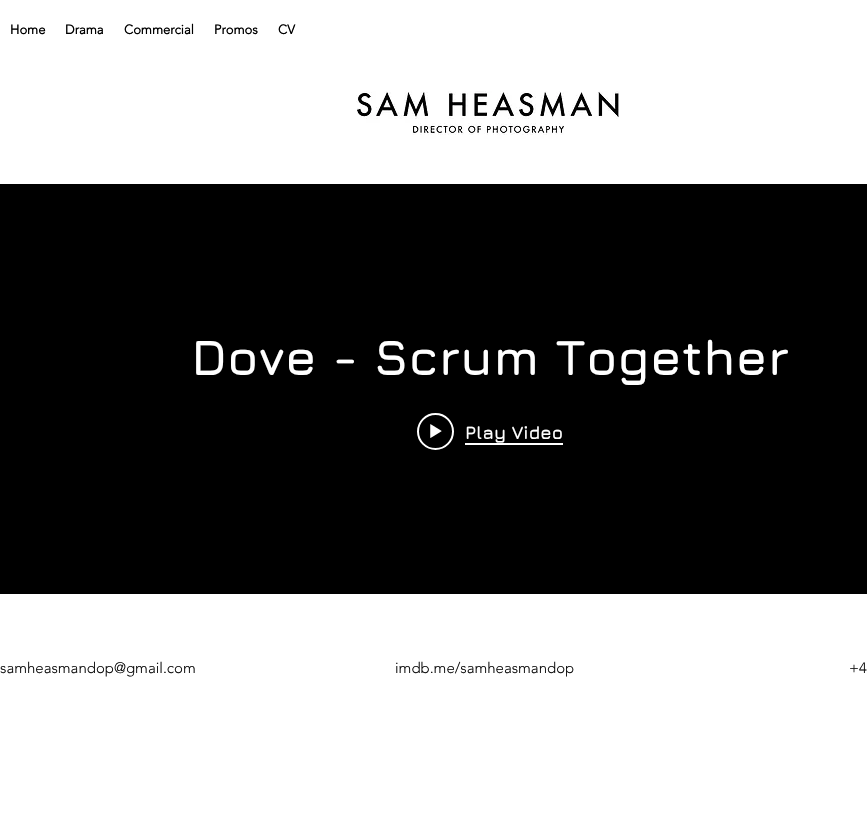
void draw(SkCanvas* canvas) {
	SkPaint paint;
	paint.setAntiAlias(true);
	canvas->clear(0xffffffff);
	SkFont f1(fontMgr->matchFamilyStyle("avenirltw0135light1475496", SkFontStyle::Bold()), 13);
	f1.setSubpixel(true);
	paint.setColor(0xff000000);
	canvas->drawString("Home", 10, 34, f1, paint);
	canvas->drawString("Drama", 65, 34, f1, paint);
	canvas->drawString("Commercial", 124, 34, f1, paint);
	canvas->drawString("Promos", 214, 34, f1, paint);
	canvas->drawString("CV", 278, 34, f1, paint);
	canvas->drawImageRect(SkImages::DeferredFromEncodedData(SkData::MakeFromFileName("img1.png")), SkRect::MakeXYWH(332, 79, 316, 67), SkSamplingOptions());
	canvas->drawRect(SkRect::MakeXYWH(0, 184, 867, 410), paint);
	SkFont f2(fontMgr->matchFamilyStyle("Jura", SkFontStyle::Bold()), 50);
	f2.setSubpixel(true);
	paint.setColor(0xffffffff);
	canvas->drawString("Dove - Scrum Together", 191, 375, f2, paint);
	paint.setStroke(true);
	paint.setStrokeWidth(2);
	canvas->drawCircle(435.5, 431.5, 17.5, paint);
	canvas->drawImageRect(SkImages::DeferredFromEncodedData(SkData::MakeFromFileName("img2.png")), SkRect::MakeXYWH(430, 424, 12, 14), SkSamplingOptions());
	paint.setStroke(false);
	canvas->drawRect(SkRect::MakeXYWH(465, 443, 98, 2), paint);
	SkFont f3(fontMgr->matchFamilyStyle("Jura", SkFontStyle::Bold()), 18);
	f3.setSubpixel(true);
	canvas->drawString("Play Video", 465, 439, f3, paint);
	SkFont f4(fontMgr->matchFamilyStyle("avenirltw0135light1475496", SkFontStyle(300, SkFontStyle::kNormal_Width, SkFontStyle::kUpright_Slant)), 15);
	f4.setSubpixel(true);
	paint.setColor(0xff0f0f0f);
	canvas->drawString("samheasmandop@gmail.com", 0, 673, f4, paint);
	canvas->drawString("imdb.me/samheasmandop", 395, 673, f4, paint);
	canvas->drawString("+4", 849, 673, f4, paint);
}
